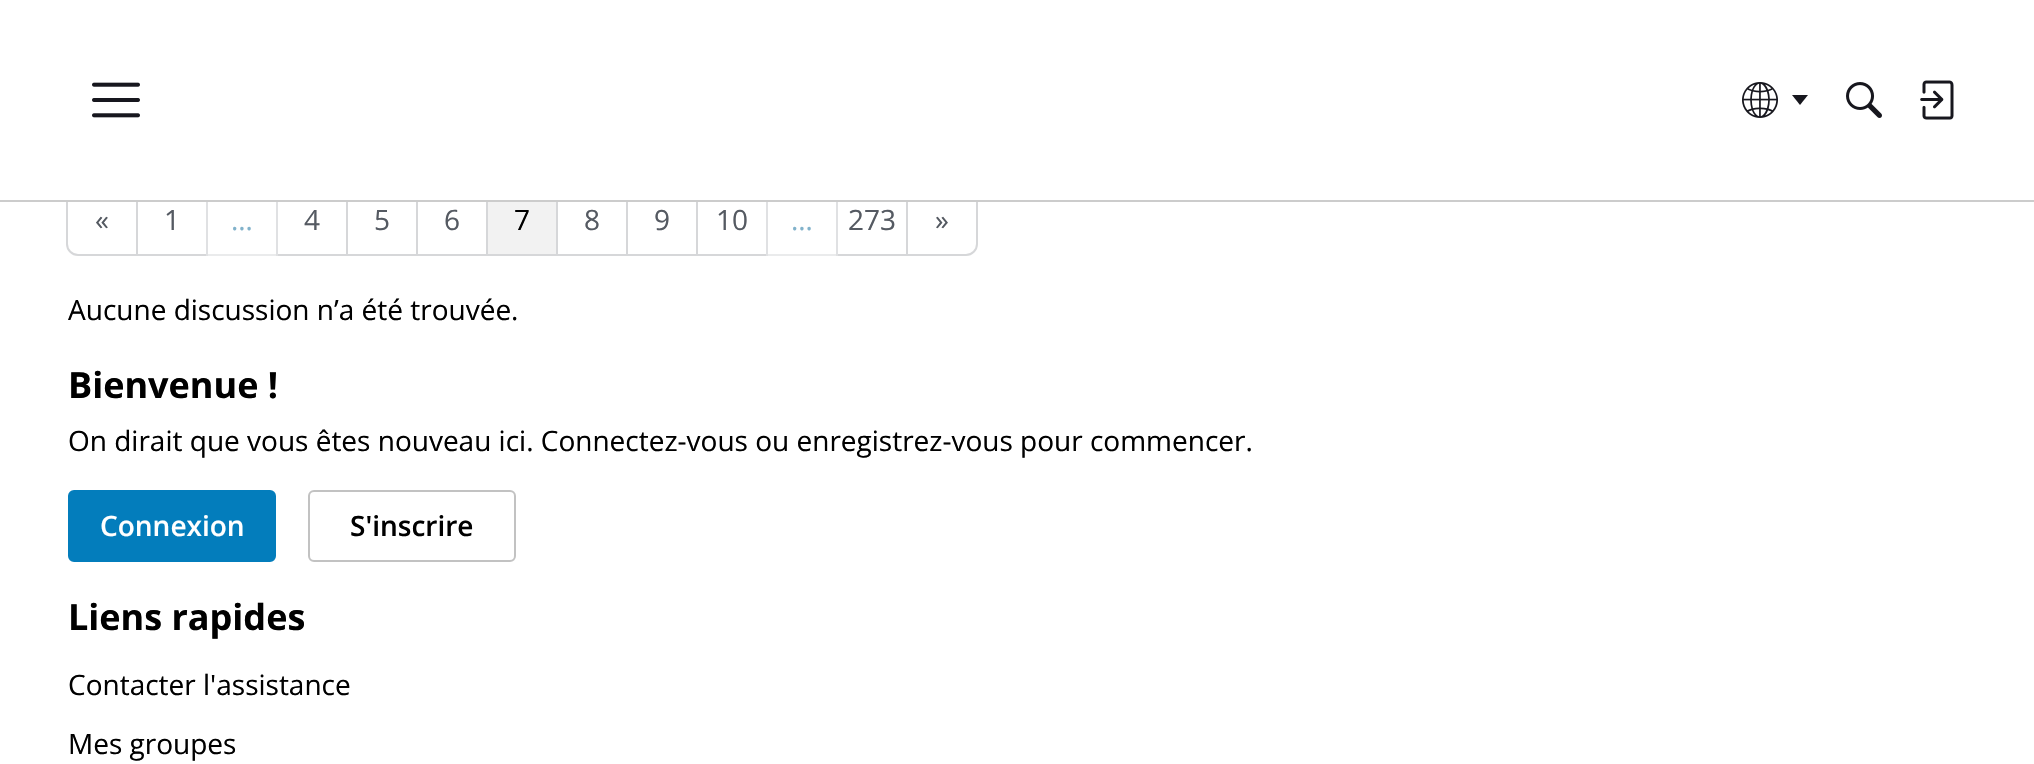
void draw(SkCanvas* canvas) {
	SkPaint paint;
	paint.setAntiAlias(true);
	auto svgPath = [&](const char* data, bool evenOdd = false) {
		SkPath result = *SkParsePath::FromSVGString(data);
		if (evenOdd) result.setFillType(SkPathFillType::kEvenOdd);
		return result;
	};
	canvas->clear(0xffffffff);
	paint.setStroke(true);
	paint.setStrokeWidth(2);
	paint.setColor(0xffd6d7d9);
	canvas->drawPath(svgPath("M78 185H137V255H78C72 255 67 250 67 244V196C67 190 72 185 78 185Z"), paint);
	canvas->drawRect(SkRect::MakeXYWH(137, 185, 70, 70), paint);
	canvas->drawRect(SkRect::MakeXYWH(277, 185, 70, 70), paint);
	paint.setStroke(false);
	paint.setColor(0x80ffffff);
	canvas->drawRect(SkRect::MakeXYWH(206, 202, 72, 54), paint);
	paint.setStroke(true);
	paint.setColor(0x80d6d7d9);
	canvas->drawRect(SkRect::MakeXYWH(207, 185, 70, 70), paint);
	paint.setColor(0xffd6d7d9);
	canvas->drawRect(SkRect::MakeXYWH(347, 185, 70, 70), paint);
	canvas->drawRect(SkRect::MakeXYWH(417, 185, 70, 70), paint);
	paint.setStroke(false);
	paint.setColor(0xfff2f2f2);
	canvas->drawRect(SkRect::MakeXYWH(488, 202, 68, 52), paint);
	paint.setStroke(true);
	paint.setColor(0xffd6d7d9);
	canvas->drawRect(SkRect::MakeXYWH(487, 185, 70, 70), paint);
	canvas->drawRect(SkRect::MakeXYWH(557, 185, 70, 70), paint);
	canvas->drawRect(SkRect::MakeXYWH(627, 185, 70, 70), paint);
	canvas->drawRect(SkRect::MakeXYWH(697, 185, 70, 70), paint);
	canvas->drawRect(SkRect::MakeXYWH(837, 185, 70, 70), paint);
	paint.setStroke(false);
	paint.setColor(0x80ffffff);
	canvas->drawRect(SkRect::MakeXYWH(766, 202, 72, 54), paint);
	paint.setStroke(true);
	paint.setColor(0x80d6d7d9);
	canvas->drawRect(SkRect::MakeXYWH(767, 185, 70, 70), paint);
	paint.setColor(0xffd6d7d9);
	canvas->drawPath(svgPath("M907 185H966C972 185 977 190 977 196V244C977 250 972 255 966 255H907Z"), paint);
	paint.setStroke(false);
	paint.setColor(0xffcccccc);
	canvas->drawRect(SkRect::MakeXYWH(0, 200, 2034, 2), paint);
	canvas->drawImageRect(SkImages::DeferredFromEncodedData(SkData::MakeFromFileName("img1.png")), SkRect::MakeXYWH(92, 82, 48, 36), SkSamplingOptions());
	canvas->drawImageRect(SkImages::DeferredFromEncodedData(SkData::MakeFromFileName("img2.png")), SkRect::MakeXYWH(1742, 82, 36, 36), SkSamplingOptions());
	paint.setColor(0xff17171e);
	canvas->drawPath(svgPath("M1792 95H1808L1800 105Z"), paint);
	canvas->drawImageRect(SkImages::DeferredFromEncodedData(SkData::MakeFromFileName("img3.png")), SkRect::MakeXYWH(1846, 82, 36, 36), SkSamplingOptions());
	canvas->drawImageRect(SkImages::DeferredFromEncodedData(SkData::MakeFromFileName("img4.png")), SkRect::MakeXYWH(1920, 80, 34, 40), SkSamplingOptions());
	paint.setColor(0xffffffff);
	canvas->drawRect(SkRect::MakeXYWH(66, 184, 912, 16), paint);
	SkFont f1(fontMgr->matchFamilyStyle("Open Sans", SkFontStyle::Normal()), 28);
	f1.setSubpixel(true);
	paint.setColor(0xff555a62);
	canvas->drawString("«", 95, 230, f1, paint);
	canvas->drawString("1", 164, 230, f1, paint);
	paint.setColor(0xff81b2cb);
	canvas->drawString("…", 231, 230, f1, paint);
	paint.setColor(0xff555a62);
	canvas->drawString("4", 304, 230, f1, paint);
	canvas->drawString("5", 374, 230, f1, paint);
	canvas->drawString("6", 444, 230, f1, paint);
	paint.setColor(0xff000000);
	canvas->drawString("7", 514, 230, f1, paint);
	paint.setColor(0xff555a62);
	canvas->drawString("8", 584, 230, f1, paint);
	canvas->drawString("9", 654, 230, f1, paint);
	canvas->drawString("10", 716, 230, f1, paint);
	paint.setColor(0xff81b2cb);
	canvas->drawString("…", 791, 230, f1, paint);
	paint.setColor(0xff555a62);
	canvas->drawString("273", 848, 230, f1, paint);
	canvas->drawString("»", 935, 230, f1, paint);
	paint.setColor(0xff000000);
	canvas->drawString("Aucune discussion n’a été trouvée.", 68, 320, f1, paint);
	SkFont f2(fontMgr->matchFamilyStyle("Open Sans", SkFontStyle::Bold()), 36);
	f2.setSubpixel(true);
	canvas->drawString("Bienvenue !", 68, 398, f2, paint);
	canvas->drawString("On dirait que vous êtes nouveau ici. Connectez-vous ou enregistrez-vous pour commencer.", 68, 451, f1, paint);
	paint.setColor(0xff037dbc);
	canvas->drawRoundRect(SkRect::MakeXYWH(69, 491, 206, 70), 5, 5, paint);
	paint.setStroke(true);
	canvas->drawRoundRect(SkRect::MakeXYWH(69, 491, 206, 70), 5, 5, paint);
	SkFont f3(fontMgr->matchFamilyStyle("Open Sans", SkFontStyle(600, SkFontStyle::kNormal_Width, SkFontStyle::kUpright_Slant)), 28);
	f3.setSubpixel(true);
	paint.setStroke(false);
	paint.setColor(0xffffffff);
	canvas->drawString("Connexion", 100, 536, f3, paint);
	paint.setStroke(true);
	paint.setColor(0xffc2c2c2);
	canvas->drawRoundRect(SkRect::MakeXYWH(309, 491, 206, 70), 5, 5, paint);
	paint.setStroke(false);
	paint.setColor(0xff000000);
	canvas->drawString("S'inscrire", 350, 536, f3, paint);
	canvas->drawString("Liens rapides", 68, 630, f2, paint);
	canvas->drawString("Contacter l'assistance", 68, 695, f1, paint);
	canvas->drawString("Mes groupes", 68, 754, f1, paint);
}
